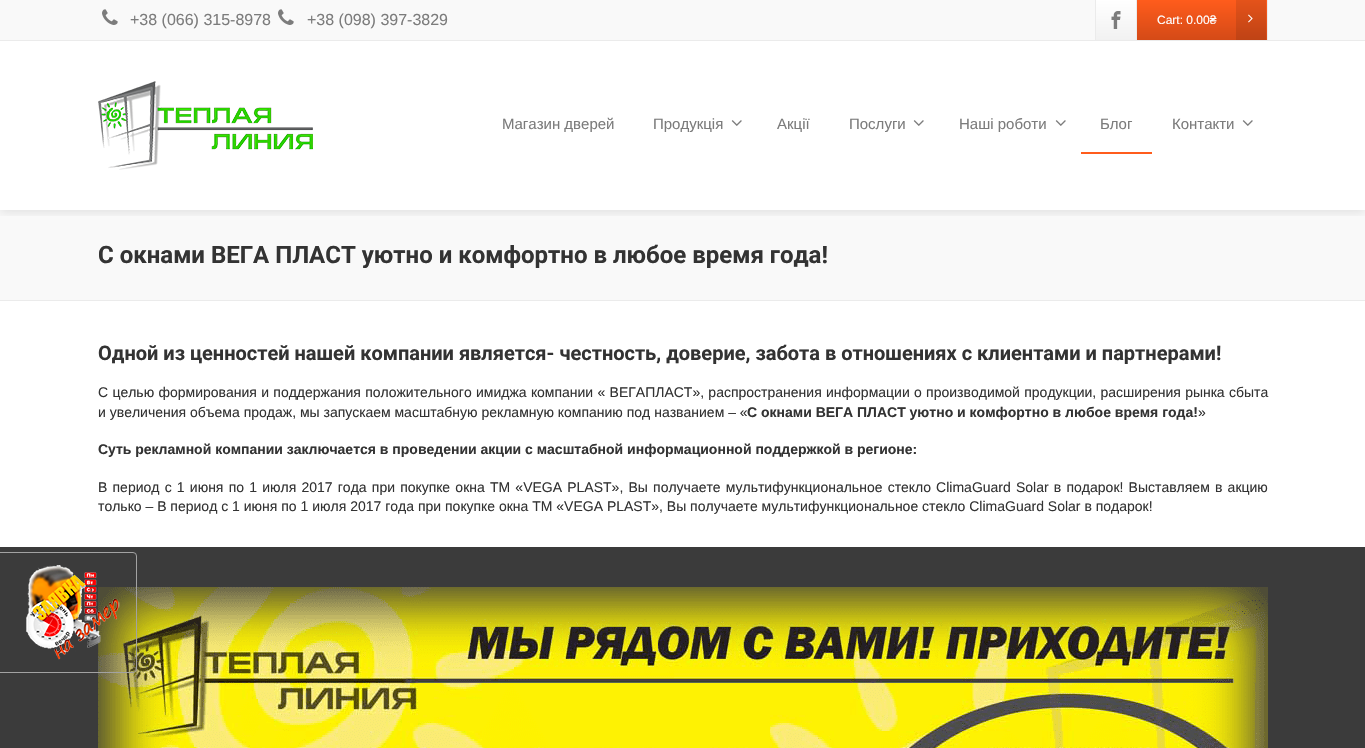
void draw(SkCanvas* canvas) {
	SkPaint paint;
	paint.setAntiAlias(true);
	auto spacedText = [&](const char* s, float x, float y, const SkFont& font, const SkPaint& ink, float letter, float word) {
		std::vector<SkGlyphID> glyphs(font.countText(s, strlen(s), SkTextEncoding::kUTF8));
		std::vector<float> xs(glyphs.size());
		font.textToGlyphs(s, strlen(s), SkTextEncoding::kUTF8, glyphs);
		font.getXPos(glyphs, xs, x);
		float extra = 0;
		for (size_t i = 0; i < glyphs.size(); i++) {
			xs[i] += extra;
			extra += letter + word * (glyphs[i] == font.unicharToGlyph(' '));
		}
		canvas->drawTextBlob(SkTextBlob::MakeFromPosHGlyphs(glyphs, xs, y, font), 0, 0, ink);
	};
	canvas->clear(0xffffffff);
	paint.setColor(0xfff9f9f9);
	canvas->drawRect(SkRect::MakeXYWH(0, 210, 1365, 90), paint);
	canvas->save();
	canvas->clipRect(SkRect::MakeXYWH(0, 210, 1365, 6));
	paint.setColor(0x1a000000);
	paint.setMaskFilter(SkMaskFilter::MakeBlur(kNormal_SkBlurStyle, 5));
	canvas->drawRect(SkRect::MakeXYWH(0, 43, 1365, 169), paint);
	paint.setMaskFilter(nullptr);
	canvas->restore();
	paint.setColor(0xfff9f9f9);
	canvas->drawRect(SkRect::MakeXYWH(0, 0, 1365, 40), paint);
	paint.setColor(0xffebebeb);
	canvas->drawRect(SkRect::MakeXYWH(0, 40, 1365, 1), paint);
	canvas->drawImageRect(SkImages::DeferredFromEncodedData(SkData::MakeFromFileName("img1.png")), SkRect::MakeXYWH(102, 9, 16, 16), SkSamplingOptions());
	SkFont f1(fontMgr->matchFamilyStyle("Liberation Sans", SkFontStyle::Normal()), 16);
	f1.setSubpixel(true);
	paint.setColor(0xff7c7c7c);
	canvas->drawString("+38 (066) 315-8978", 130, 25, f1, paint);
	canvas->drawImageRect(SkImages::DeferredFromEncodedData(SkData::MakeFromFileName("img1.png")), SkRect::MakeXYWH(278, 9, 16, 16), SkSamplingOptions());
	canvas->drawString("+38 (098) 397-3829", 307, 25, f1, paint);
	{
		const SkColor colors[] = {0xffffffff, 0xfff1f1f1};
		const float stops[] = {0, 1};
		const SkPoint ends[] = {{1116, 0}, {1116, 40}};
		paint.setShader(SkGradientShader::MakeLinear(ends, colors, stops, 2, SkTileMode::kClamp));
		paint.setAlpha(255);
	}
	canvas->drawRect(SkRect::MakeXYWH(1096, 0, 40, 40), paint);
	paint.setShader(nullptr);
	paint.setColor(0xffebebeb);
	canvas->drawRect(SkRect::MakeXYWH(1136, 0, 1, 40), paint);
	canvas->drawRect(SkRect::MakeXYWH(1095, 0, 1, 40), paint);
	canvas->drawImageRect(SkImages::DeferredFromEncodedData(SkData::MakeFromFileName("img2.png")), SkRect::MakeXYWH(1111, 11, 10, 18), SkSamplingOptions());
	canvas->drawRect(SkRect::MakeXYWH(1267, 0, 1, 40), paint);
	{
		const SkColor colors[] = {0xffff5c1c, 0xffd44a17};
		const float stops[] = {0, 1};
		const SkPoint ends[] = {{1202, 0}, {1202, 40}};
		paint.setShader(SkGradientShader::MakeLinear(ends, colors, stops, 2, SkTileMode::kClamp));
		paint.setAlpha(255);
	}
	canvas->drawRect(SkRect::MakeXYWH(1137, 0, 130, 40), paint);
	SkFont f2(fontMgr->matchFamilyStyle("Liberation Sans", SkFontStyle::Normal()), 12);
	f2.setSubpixel(true);
	paint.setShader(nullptr);
	paint.setColor(0xffffffff);
	canvas->drawString("Cart: 0.00₴", 1157, 24, f2, paint);
	paint.setColor(0x1a000000);
	canvas->drawRect(SkRect::MakeXYWH(1236, 0, 30, 40), paint);
	canvas->drawImageRect(SkImages::DeferredFromEncodedData(SkData::MakeFromFileName("img3.png")), SkRect::MakeXYWH(1248, 14, 5, 9), SkSamplingOptions());
	canvas->drawImageRect(SkImages::DeferredFromEncodedData(SkData::MakeFromFileName("img4.png")), SkRect::MakeXYWH(98, 81, 215, 89), SkSamplingOptions());
	SkFont f3(fontMgr->matchFamilyStyle("Liberation Sans", SkFontStyle::Normal()), 15);
	f3.setSubpixel(true);
	paint.setColor(0xff7c7c7c);
	canvas->drawString("Магазин дверей", 502, 129, f3, paint);
	canvas->drawString("Продукція", 653, 129, f3, paint);
	canvas->drawImageRect(SkImages::DeferredFromEncodedData(SkData::MakeFromFileName("img5.png")), SkRect::MakeXYWH(731, 120, 11, 6), SkSamplingOptions());
	canvas->drawString("Акції", 777, 129, f3, paint);
	canvas->drawString("Послуги", 849, 129, f3, paint);
	canvas->drawImageRect(SkImages::DeferredFromEncodedData(SkData::MakeFromFileName("img5.png")), SkRect::MakeXYWH(913, 120, 11, 6), SkSamplingOptions());
	canvas->drawString("Наші роботи", 959, 129, f3, paint);
	canvas->drawImageRect(SkImages::DeferredFromEncodedData(SkData::MakeFromFileName("img5.png")), SkRect::MakeXYWH(1055, 120, 11, 6), SkSamplingOptions());
	paint.setColor(0xffff5c1c);
	canvas->drawRect(SkRect::MakeXYWH(1081, 152, 71, 2), paint);
	paint.setColor(0xff7c7c7c);
	canvas->drawString("Блог", 1100, 129, f3, paint);
	canvas->drawString("Контакти", 1172, 129, f3, paint);
	canvas->drawImageRect(SkImages::DeferredFromEncodedData(SkData::MakeFromFileName("img5.png")), SkRect::MakeXYWH(1242, 120, 11, 6), SkSamplingOptions());
	paint.setColor(0xffebebeb);
	canvas->drawRect(SkRect::MakeXYWH(0, 300, 1365, 1), paint);
	SkFont f4(fontMgr->matchFamilyStyle("Roboto", SkFontStyle::Bold()), 24);
	f4.setSubpixel(true);
	paint.setColor(0xff333333);
	canvas->drawString("С окнами ВЕГА ПЛАСТ уютно и комфортно в любое время года!", 98, 263, f4, paint);
	SkFont f5(fontMgr->matchFamilyStyle("Roboto", SkFontStyle::Bold()), 20);
	f5.setSubpixel(true);
	canvas->drawString("Одной из ценностей нашей компании является- честность, доверие, забота в отношениях с клиентами и партнерами!", 98, 360, f5, paint);
	SkFont f6(fontMgr->matchFamilyStyle("Liberation Sans", SkFontStyle::Normal()), 14);
	f6.setSubpixel(true);
	spacedText("С целью формирования и поддержания положительного имиджа компании « ВЕГАПЛАСТ», распространения информации о производимой продукции, расширения рынка сбыта", 98, 397, f6, paint, 0, 0.4);
	canvas->drawString("и увеличения объема продаж, мы запускаем масштабную рекламную компанию под названием – «", 98, 417, f6, paint);
	SkFont f7(fontMgr->matchFamilyStyle("Liberation Sans", SkFontStyle::Bold()), 14);
	f7.setSubpixel(true);
	canvas->drawString("С окнами ВЕГА ПЛАСТ уютно и комфортно в любое время года!", 747, 417, f7, paint);
	canvas->drawString("»", 1198, 417, f6, paint);
	canvas->drawString("Суть рекламной компании заключается в проведении акции с масштабной информационной поддержкой в регионе:", 98, 454, f7, paint);
	spacedText("В период с 1 июня по 1 июля 2017 года при покупке окна ТМ «VEGA PLAST», Вы получаете мультифункциональное стекло ClimaGuard Solar в подарок! Выставляем в акцию", 98, 492, f6, paint, 0, 1.3);
	canvas->drawString("только – В период с 1 июня по 1 июля 2017 года при покупке окна ТМ «VEGA PLAST», Вы получаете мультифункциональное стекло ClimaGuard Solar в подарок!", 98, 511, f6, paint);
	paint.setColor(0xff3b3b3b);
	canvas->drawRect(SkRect::MakeXYWH(0, 547, 1365, 201), paint);
	canvas->drawImageRect(SkImages::DeferredFromEncodedData(SkData::MakeFromFileName("img6.png")), SkRect::MakeXYWH(98, 587, 1170, 161), SkSamplingOptions());
	paint.setStroke(true);
	paint.setStrokeWidth(1);
	paint.setColor(0xffa2a2a2);
	canvas->drawRoundRect(SkRect::MakeXYWH(-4.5, 552.5, 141, 120), 3.5, 3.5, paint);
	canvas->drawImageRect(SkImages::DeferredFromEncodedData(SkData::MakeFromFileName("img7.png")), SkRect::MakeXYWH(26, 565, 94, 95), SkSamplingOptions());
}
